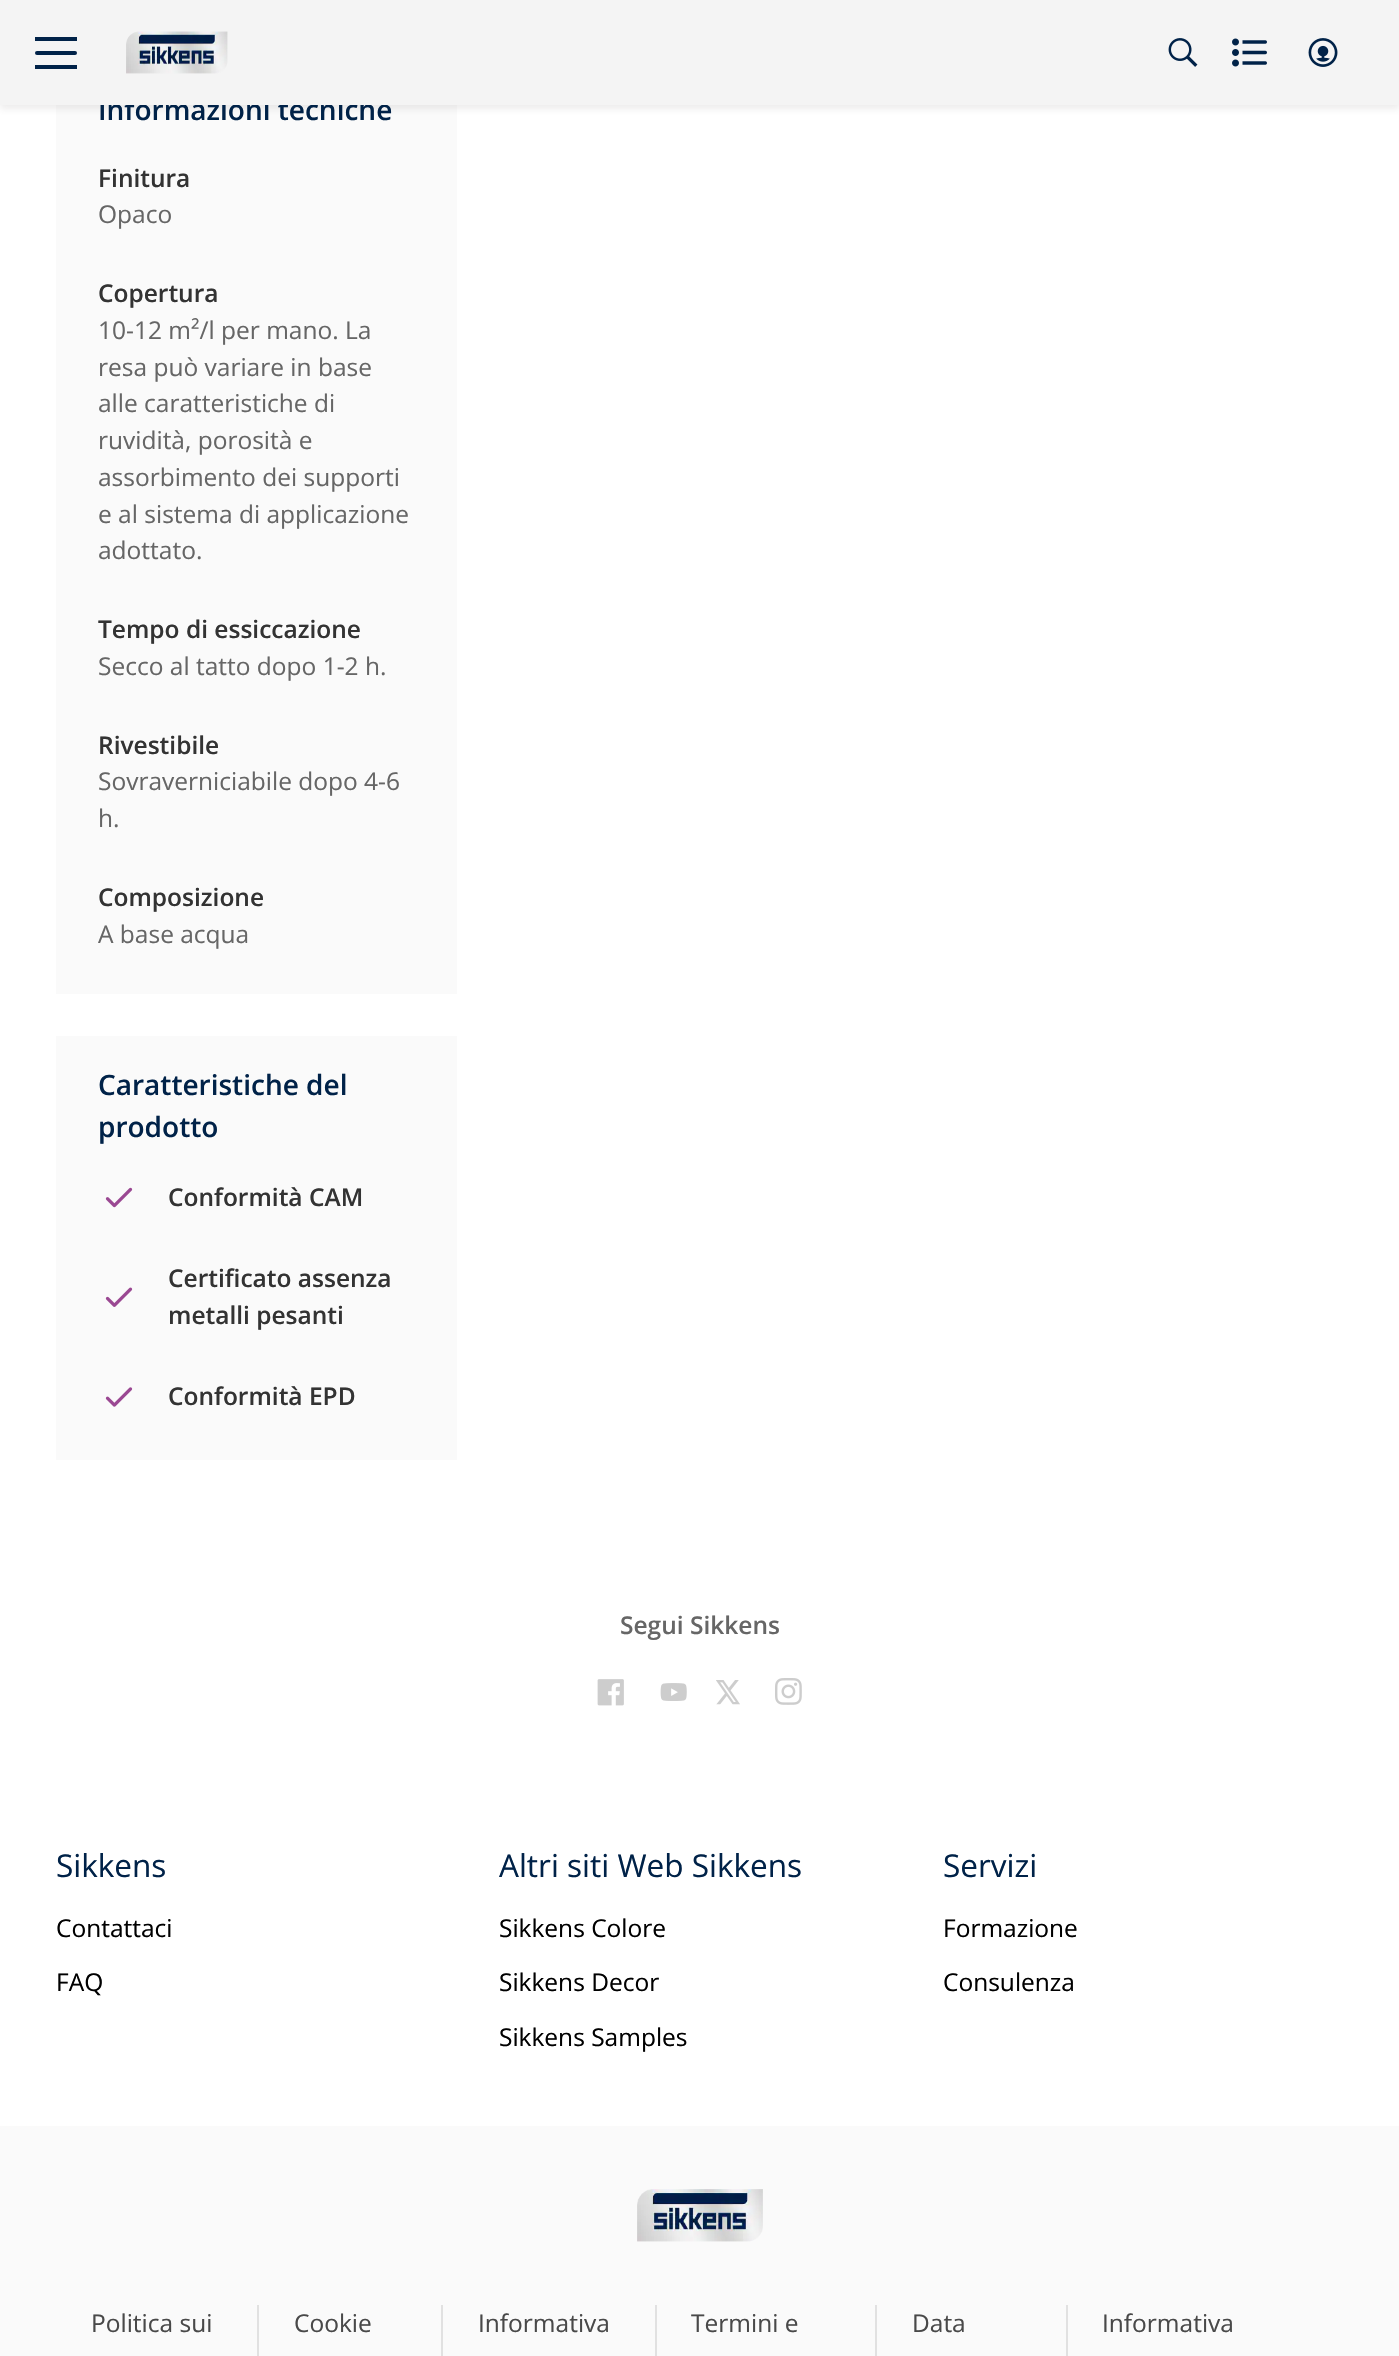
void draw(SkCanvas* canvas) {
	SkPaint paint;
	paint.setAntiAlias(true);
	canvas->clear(0xffffffff);
	paint.setColor(0xfffafafa);
	canvas->drawRect(SkRect::MakeXYWH(56, 105, 401, 889), paint);
	paint.setColor(0x1a4f4141);
	paint.setMaskFilter(SkMaskFilter::MakeBlur(kNormal_SkBlurStyle, 3.5));
	canvas->drawRect(SkRect::MakeXYWH(0, 4, 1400, 105), paint);
	paint.setMaskFilter(nullptr);
	SkFont f1(fontMgr->matchFamilyStyle("Open Sans", SkFontStyle(600, SkFontStyle::kNormal_Width, SkFontStyle::kUpright_Slant)), 28);
	f1.setSubpixel(true);
	paint.setColor(0xff002248);
	canvas->drawString("Informazioni tecniche", 98, 120, f1, paint);
	paint.setColor(0xfff4f4f4);
	canvas->drawRect(SkRect::MakeXYWH(0, 0, 1399, 105), paint);
	paint.setColor(0xff002248);
	canvas->drawRoundRect(SkRect::MakeXYWH(35, 51, 42, 4), 2, 2, paint);
	canvas->drawRect(SkRect::MakeXYWH(35, 37, 42, 4), paint);
	canvas->drawRect(SkRect::MakeXYWH(35, 65, 42, 4), paint);
	canvas->drawImageRect(SkImages::DeferredFromEncodedData(SkData::MakeFromFileName("img1.png")), SkRect::MakeXYWH(126, 31, 102, 43), SkSamplingOptions());
	canvas->drawImageRect(SkImages::DeferredFromEncodedData(SkData::MakeFromFileName("img2.png")), SkRect::MakeXYWH(1168, 38, 30, 29), SkSamplingOptions());
	canvas->drawImageRect(SkImages::DeferredFromEncodedData(SkData::MakeFromFileName("img3.png")), SkRect::MakeXYWH(1232, 38, 35, 29), SkSamplingOptions());
	canvas->drawImageRect(SkImages::DeferredFromEncodedData(SkData::MakeFromFileName("img4.png")), SkRect::MakeXYWH(1308, 38, 30, 29), SkSamplingOptions());
	SkFont f2(fontMgr->matchFamilyStyle("Open Sans", SkFontStyle(600, SkFontStyle::kNormal_Width, SkFontStyle::kUpright_Slant)), 24.5);
	f2.setSubpixel(true);
	paint.setColor(0xff333333);
	canvas->drawString("Finitura", 98, 187, f2, paint);
	SkFont f3(fontMgr->matchFamilyStyle("Open Sans", SkFontStyle::Normal()), 24.5);
	f3.setSubpixel(true);
	paint.setColor(0xff666666);
	canvas->drawString("Opaco", 98, 223, f3, paint);
	paint.setColor(0xff333333);
	canvas->drawString("Copertura", 98, 302, f2, paint);
	paint.setColor(0xff666666);
	canvas->drawString("10-12 m²/l per mano. La", 98, 339, f3, paint);
	canvas->drawString("resa può variare in base", 98, 376, f3, paint);
	canvas->drawString("alle caratteristiche di", 98, 412, f3, paint);
	canvas->drawString("ruvidità, porosità e", 98, 449, f3, paint);
	canvas->drawString("assorbimento dei supporti", 98, 486, f3, paint);
	canvas->drawString("e al sistema di applicazione", 98, 523, f3, paint);
	canvas->drawString("adottato.", 98, 559, f3, paint);
	paint.setColor(0xff333333);
	canvas->drawString("Tempo di essiccazione", 98, 638, f2, paint);
	paint.setColor(0xff666666);
	canvas->drawString("Secco al tatto dopo 1-2 h.", 98, 675, f3, paint);
	paint.setColor(0xff333333);
	canvas->drawString("Rivestibile", 98, 754, f2, paint);
	paint.setColor(0xff666666);
	canvas->drawString("Sovraverniciabile dopo 4-6", 98, 790, f3, paint);
	canvas->drawString("h.", 98, 827, f3, paint);
	paint.setColor(0xff333333);
	canvas->drawString("Composizione", 98, 906, f2, paint);
	paint.setColor(0xff666666);
	canvas->drawString("A base acqua", 98, 943, f3, paint);
	paint.setColor(0xfffafafa);
	canvas->drawRect(SkRect::MakeXYWH(56, 1036, 401, 424), paint);
	paint.setColor(0xff002248);
	canvas->drawString("Caratteristiche del", 98, 1095, f1, paint);
	canvas->drawString("prodotto", 98, 1137, f1, paint);
	canvas->drawImageRect(SkImages::DeferredFromEncodedData(SkData::MakeFromFileName("img5.png")), SkRect::MakeXYWH(105, 1187, 28, 21), SkSamplingOptions());
	paint.setColor(0xff333333);
	canvas->drawString("Conformità CAM", 168, 1206, f2, paint);
	canvas->drawImageRect(SkImages::DeferredFromEncodedData(SkData::MakeFromFileName("img6.png")), SkRect::MakeXYWH(105, 1287, 28, 20), SkSamplingOptions());
	canvas->drawString("Certificato assenza", 168, 1287, f2, paint);
	canvas->drawString("metalli pesanti", 168, 1324, f2, paint);
	canvas->drawImageRect(SkImages::DeferredFromEncodedData(SkData::MakeFromFileName("img7.png")), SkRect::MakeXYWH(105, 1387, 28, 20), SkSamplingOptions());
	canvas->drawString("Conformità EPD", 168, 1405, f2, paint);
	paint.setColor(0xff666666);
	canvas->drawString("Segui Sikkens", 620, 1634, f2, paint);
	canvas->drawImageRect(SkImages::DeferredFromEncodedData(SkData::MakeFromFileName("img8.png")), SkRect::MakeXYWH(597, 1679, 27, 27), SkSamplingOptions());
	canvas->drawImageRect(SkImages::DeferredFromEncodedData(SkData::MakeFromFileName("img9.png")), SkRect::MakeXYWH(660, 1683, 27, 18), SkSamplingOptions());
	canvas->drawImageRect(SkImages::DeferredFromEncodedData(SkData::MakeFromFileName("img10.png")), SkRect::MakeXYWH(716, 1680, 24, 25), SkSamplingOptions());
	canvas->drawImageRect(SkImages::DeferredFromEncodedData(SkData::MakeFromFileName("img11.png")), SkRect::MakeXYWH(775, 1678, 27, 27), SkSamplingOptions());
	SkFont f4(fontMgr->matchFamilyStyle("Open Sans", SkFontStyle::Normal()), 31.5);
	f4.setSubpixel(true);
	paint.setColor(0xff002248);
	canvas->drawString("Sikkens", 56, 1877, f4, paint);
	paint.setColor(0xff000000);
	canvas->drawString("Contattaci", 56, 1937, f3, paint);
	canvas->drawString("FAQ", 56, 1991, f3, paint);
	paint.setColor(0xff002248);
	canvas->drawString("Altri siti Web Sikkens", 499, 1877, f4, paint);
	paint.setColor(0xff000000);
	canvas->drawString("Sikkens Colore", 499, 1937, f3, paint);
	canvas->drawString("Sikkens Decor", 499, 1991, f3, paint);
	canvas->drawString("Sikkens Samples", 499, 2046, f3, paint);
	paint.setColor(0xff002248);
	canvas->drawString("Servizi", 943, 1877, f4, paint);
	paint.setColor(0xff000000);
	canvas->drawString("Formazione", 943, 1937, f3, paint);
	canvas->drawString("Consulenza", 943, 1991, f3, paint);
	paint.setColor(0xfffafafa);
	canvas->drawRect(SkRect::MakeXYWH(0, 2126, 1399, 230), paint);
	canvas->drawImageRect(SkImages::DeferredFromEncodedData(SkData::MakeFromFileName("img12.png")), SkRect::MakeXYWH(637, 2189, 126, 53), SkSamplingOptions());
	paint.setColor(0xffe1e1e1);
	canvas->drawRect(SkRect::MakeXYWH(257, 2305, 2, 51), paint);
	paint.setColor(0xff494949);
	canvas->drawString("Politica sui", 91, 2332, f3, paint);
	paint.setColor(0xffe1e1e1);
	canvas->drawRect(SkRect::MakeXYWH(441, 2305, 2, 51), paint);
	paint.setColor(0xff494949);
	canvas->drawString("Cookie", 294, 2332, f3, paint);
	paint.setColor(0xffe1e1e1);
	canvas->drawRect(SkRect::MakeXYWH(655, 2305, 2, 51), paint);
	paint.setColor(0xff494949);
	canvas->drawString("Informativa", 478, 2332, f3, paint);
	paint.setColor(0xffe1e1e1);
	canvas->drawRect(SkRect::MakeXYWH(875, 2305, 2, 51), paint);
	paint.setColor(0xff494949);
	canvas->drawString("Termini e", 691, 2332, f3, paint);
	paint.setColor(0xffe1e1e1);
	canvas->drawRect(SkRect::MakeXYWH(1066, 2305, 2, 51), paint);
	paint.setColor(0xff494949);
	canvas->drawString("Data", 912, 2332, f3, paint);
	canvas->drawString("Informativa", 1102, 2332, f3, paint);
}
